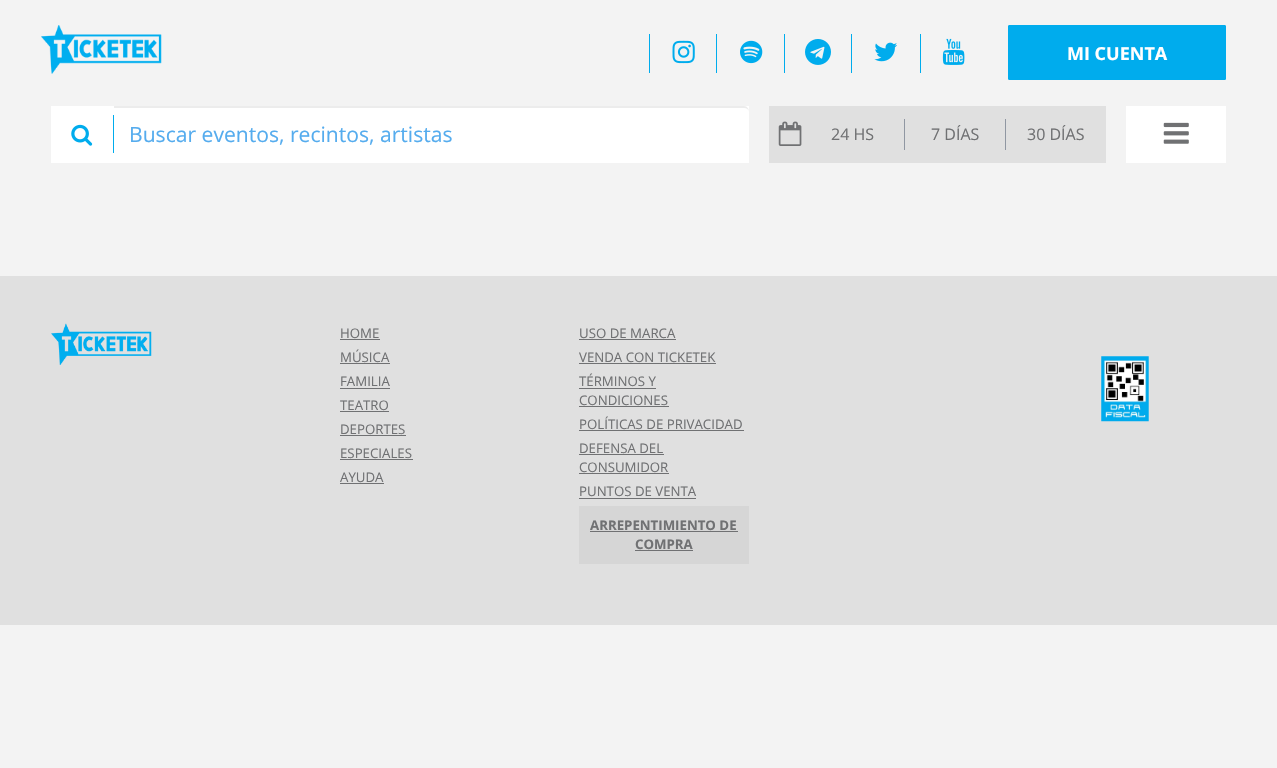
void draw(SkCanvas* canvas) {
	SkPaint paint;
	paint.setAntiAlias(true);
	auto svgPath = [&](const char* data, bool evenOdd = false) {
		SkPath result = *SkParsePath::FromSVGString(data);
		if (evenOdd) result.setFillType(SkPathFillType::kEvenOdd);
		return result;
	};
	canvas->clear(0xfff3f3f3);
	canvas->drawImageRect(SkImages::DeferredFromEncodedData(SkData::MakeFromFileName("img1.png")), SkRect::MakeXYWH(41, 25, 121, 49), SkSamplingOptions());
	paint.setColor(0xff00aced);
	canvas->drawRect(SkRect::MakeXYWH(649, 34, 1, 39), paint);
	canvas->drawImageRect(SkImages::DeferredFromEncodedData(SkData::MakeFromFileName("img2.png")), SkRect::MakeXYWH(672, 40, 23, 24), SkSamplingOptions());
	canvas->drawRect(SkRect::MakeXYWH(716, 34, 1, 39), paint);
	canvas->drawImageRect(SkImages::DeferredFromEncodedData(SkData::MakeFromFileName("img3.png")), SkRect::MakeXYWH(740, 40, 23, 24), SkSamplingOptions());
	canvas->drawRect(SkRect::MakeXYWH(784, 34, 1, 39), paint);
	canvas->drawImageRect(SkImages::DeferredFromEncodedData(SkData::MakeFromFileName("img4.png")), SkRect::MakeXYWH(805, 39, 26, 26), SkSamplingOptions());
	canvas->drawRect(SkRect::MakeXYWH(851, 34, 1, 39), paint);
	canvas->drawImageRect(SkImages::DeferredFromEncodedData(SkData::MakeFromFileName("img5.png")), SkRect::MakeXYWH(874, 42, 23, 20), SkSamplingOptions());
	canvas->drawRect(SkRect::MakeXYWH(920, 34, 1, 39), paint);
	canvas->drawImageRect(SkImages::DeferredFromEncodedData(SkData::MakeFromFileName("img6.png")), SkRect::MakeXYWH(942, 38, 23, 27), SkSamplingOptions());
	canvas->drawRoundRect(SkRect::MakeXYWH(1008.5, 25.5, 217, 54), 0.5, 0.5, paint);
	paint.setStroke(true);
	paint.setStrokeWidth(1);
	canvas->drawRoundRect(SkRect::MakeXYWH(1008.5, 25.5, 217, 54), 0.5, 0.5, paint);
	SkFont f1(fontMgr->matchFamilyStyle("Open Sans", SkFontStyle::Bold()), 18);
	f1.setSubpixel(true);
	paint.setStroke(false);
	paint.setColor(0xffffffff);
	canvas->drawString("MI CUENTA", 1067, 60, f1, paint);
	canvas->drawRect(SkRect::MakeXYWH(51, 106, 698, 57), paint);
	paint.setColor(0xff00aced);
	canvas->drawRect(SkRect::MakeXYWH(113, 115, 1, 38), paint);
	canvas->drawImageRect(SkImages::DeferredFromEncodedData(SkData::MakeFromFileName("img7.png")), SkRect::MakeXYWH(71, 124, 22, 22), SkSamplingOptions());
	paint.setColor(0xffececec);
	canvas->drawPath(svgPath("M114 108H744C747 108 749 110 749 112C749 109 747 106 744 106H114Z"), paint);
	SkFont f2(fontMgr->matchFamilyStyle("Open Sans", SkFontStyle::Normal()), 21.1);
	f2.setSubpixel(true);
	paint.setColor(0xff55acee);
	canvas->drawString("Buscar eventos, recintos, artistas", 129, 142, f2, paint);
	paint.setColor(0xffe0e0e0);
	canvas->drawRect(SkRect::MakeXYWH(769, 106, 337, 57), paint);
	canvas->drawImageRect(SkImages::DeferredFromEncodedData(SkData::MakeFromFileName("img8.png")), SkRect::MakeXYWH(778, 121, 24, 25), SkSamplingOptions());
	SkFont f3(fontMgr->matchFamilyStyle("Open Sans", SkFontStyle::Normal()), 16);
	f3.setSubpixel(true);
	paint.setColor(0xff707173);
	canvas->drawString("24 HS", 831, 140, f3, paint);
	paint.setColor(0xff9097a2);
	canvas->drawRect(SkRect::MakeXYWH(904, 119, 1, 31), paint);
	paint.setColor(0xff707173);
	canvas->drawString("7 DÍAS", 931, 140, f3, paint);
	paint.setColor(0xff9097a2);
	canvas->drawRect(SkRect::MakeXYWH(1005, 119, 1, 31), paint);
	paint.setColor(0xff707173);
	canvas->drawString("30 DÍAS", 1027, 140, f3, paint);
	paint.setColor(0xffffffff);
	canvas->drawRect(SkRect::MakeXYWH(1126, 106, 100, 57), paint);
	canvas->drawImageRect(SkImages::DeferredFromEncodedData(SkData::MakeFromFileName("img9.png")), SkRect::MakeXYWH(1163, 122, 26, 22), SkSamplingOptions());
	paint.setColor(0xffe0e0e0);
	canvas->drawRect(SkRect::MakeXYWH(0, 276, 1277, 349), paint);
	canvas->drawImageRect(SkImages::DeferredFromEncodedData(SkData::MakeFromFileName("img10.png")), SkRect::MakeXYWH(51, 323, 101, 42), SkSamplingOptions());
	SkFont f4(fontMgr->matchFamilyStyle("Open Sans", SkFontStyle::Normal()), 13.25);
	f4.setSubpixel(true);
	paint.setColor(0xff707173);
	canvas->drawString("HOME", 340, 338, f4, paint);
	canvas->drawRect(SkRect::MakeXYWH(340, 339, 40, 1), paint);
	canvas->drawString("MÚSICA", 340, 362, f4, paint);
	canvas->drawRect(SkRect::MakeXYWH(340, 363, 50, 1), paint);
	canvas->drawString("FAMILIA", 340, 386, f4, paint);
	canvas->drawRect(SkRect::MakeXYWH(340, 388, 50, 1), paint);
	canvas->drawString("TEATRO", 340, 410, f4, paint);
	canvas->drawRect(SkRect::MakeXYWH(340, 411, 49, 1), paint);
	canvas->drawString("DEPORTES", 340, 434, f4, paint);
	canvas->drawRect(SkRect::MakeXYWH(340, 435, 66, 1), paint);
	canvas->drawString("ESPECIALES", 340, 458, f4, paint);
	canvas->drawRect(SkRect::MakeXYWH(340, 459, 73, 1), paint);
	canvas->drawString("AYUDA", 340, 482, f4, paint);
	canvas->drawRect(SkRect::MakeXYWH(340, 483, 44, 1), paint);
	canvas->drawString("USO DE MARCA", 579, 338, f4, paint);
	canvas->drawRect(SkRect::MakeXYWH(579, 339, 97, 1), paint);
	canvas->drawString("VENDA CON TICKETEK", 579, 362, f4, paint);
	canvas->drawRect(SkRect::MakeXYWH(579, 363, 137, 1), paint);
	canvas->drawString("TÉRMINOS Y", 579, 386, f4, paint);
	canvas->drawRect(SkRect::MakeXYWH(579, 388, 77, 1), paint);
	canvas->drawString("CONDICIONES", 579, 405, f4, paint);
	canvas->drawRect(SkRect::MakeXYWH(579, 406, 90, 1), paint);
	canvas->drawString("POLÍTICAS DE PRIVACIDAD", 579, 429, f4, paint);
	canvas->drawRect(SkRect::MakeXYWH(579, 430, 165, 1), paint);
	canvas->drawString("DEFENSA DEL", 579, 453, f4, paint);
	canvas->drawRect(SkRect::MakeXYWH(579, 454, 85, 1), paint);
	canvas->drawString("CONSUMIDOR", 579, 472, f4, paint);
	canvas->drawRect(SkRect::MakeXYWH(579, 473, 90, 1), paint);
	canvas->drawString("PUNTOS DE VENTA", 579, 496, f4, paint);
	canvas->drawRect(SkRect::MakeXYWH(579, 498, 117, 1), paint);
	paint.setColor(0xffd6d6d6);
	canvas->drawRect(SkRect::MakeXYWH(579, 506, 170, 58), paint);
	SkFont f5(fontMgr->matchFamilyStyle("Open Sans", SkFontStyle::Bold()), 13.25);
	f5.setSubpixel(true);
	paint.setColor(0xff707173);
	canvas->drawString("ARREPENTIMIENTO DE", 590, 530, f5, paint);
	canvas->drawRect(SkRect::MakeXYWH(590, 531, 148, 1), paint);
	canvas->drawString("COMPRA", 635, 549, f5, paint);
	canvas->drawRect(SkRect::MakeXYWH(635, 550, 58, 1), paint);
	canvas->drawImageRect(SkImages::DeferredFromEncodedData(SkData::MakeFromFileName("img11.png")), SkRect::MakeXYWH(1101, 356, 48, 66), SkSamplingOptions());
}
